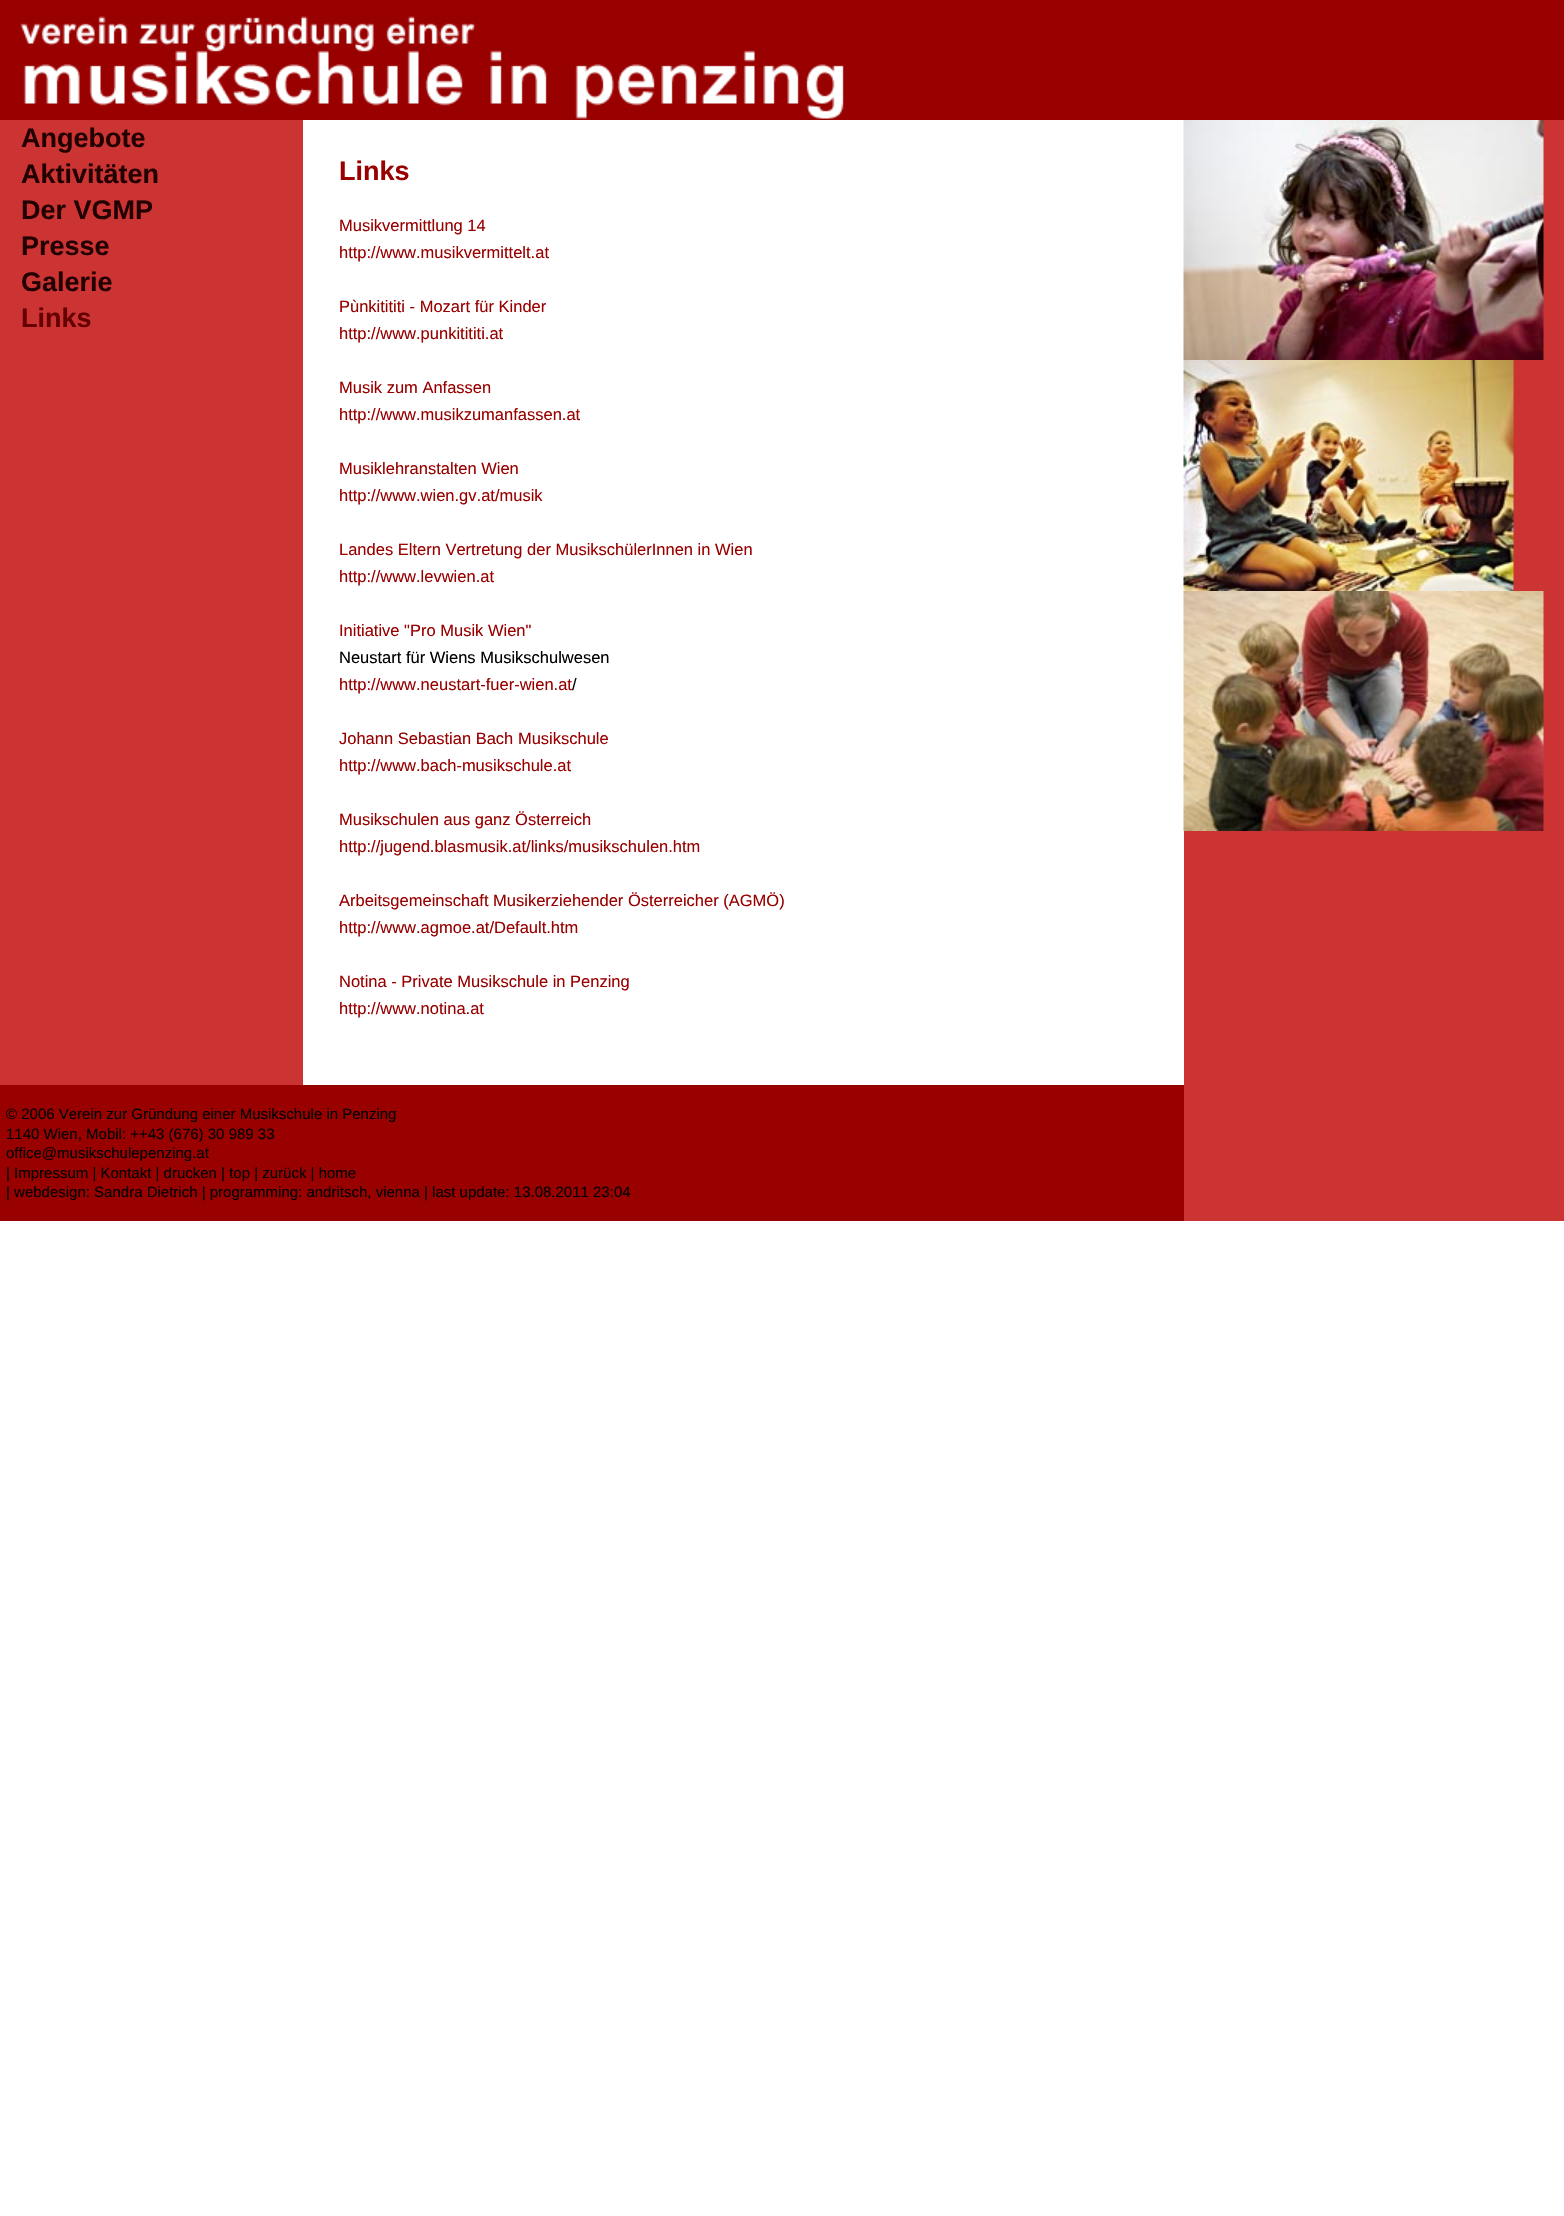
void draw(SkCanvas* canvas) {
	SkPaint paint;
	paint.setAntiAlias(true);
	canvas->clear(0xffffffff);
	paint.setColor(0xff990000);
	canvas->drawRect(SkRect::MakeXYWH(0, 0, 1564, 120), paint);
	canvas->drawImageRect(SkImages::DeferredFromEncodedData(SkData::MakeFromFileName("img1.png")), SkRect::MakeXYWH(20, 16, 824, 103), SkSamplingOptions());
	paint.setColor(0xffcc3333);
	canvas->drawRect(SkRect::MakeXYWH(0, 120, 303, 965), paint);
	canvas->drawRect(SkRect::MakeXYWH(1184, 120, 380, 1101), paint);
	canvas->drawImageRect(SkImages::DeferredFromEncodedData(SkData::MakeFromFileName("img2.png")), SkRect::MakeXYWH(1183, 120, 361, 240), SkSamplingOptions());
	canvas->drawImageRect(SkImages::DeferredFromEncodedData(SkData::MakeFromFileName("img3.png")), SkRect::MakeXYWH(1183, 360, 331, 231), SkSamplingOptions());
	canvas->drawImageRect(SkImages::DeferredFromEncodedData(SkData::MakeFromFileName("img4.png")), SkRect::MakeXYWH(1183, 591, 361, 240), SkSamplingOptions());
	SkFont f1(fontMgr->matchFamilyStyle("Liberation Sans", SkFontStyle::Bold()), 27);
	f1.setSubpixel(true);
	paint.setColor(0xff220000);
	canvas->drawString("Angebote", 21, 147, f1, paint);
	canvas->drawString("Aktivitäten", 21, 183, f1, paint);
	canvas->drawString("Der VGMP", 21, 219, f1, paint);
	canvas->drawString("Presse", 21, 255, f1, paint);
	canvas->drawString("Galerie", 21, 291, f1, paint);
	paint.setColor(0xff660000);
	canvas->drawString("Links", 21, 327, f1, paint);
	paint.setColor(0xff990000);
	canvas->drawString("Links", 339, 180, f1, paint);
	SkFont f2(fontMgr->matchFamilyStyle("Liberation Sans", SkFontStyle::Normal()), 16.5);
	f2.setSubpixel(true);
	canvas->drawString("Musikvermittlung 14", 339, 231, f2, paint);
	canvas->drawString("http://www.musikvermittelt.at", 339, 258, f2, paint);
	canvas->drawString("Pùnkitititi - Mozart für Kinder", 339, 312, f2, paint);
	canvas->drawString("http://www.punkitititi.at", 339, 339, f2, paint);
	canvas->drawString("Musik zum Anfassen", 339, 393, f2, paint);
	canvas->drawString("http://www.musikzumanfassen.at", 339, 420, f2, paint);
	canvas->drawString("Musiklehranstalten Wien", 339, 474, f2, paint);
	canvas->drawString("http://www.wien.gv.at/musik", 339, 501, f2, paint);
	canvas->drawString("Landes Eltern Vertretung der MusikschülerInnen in Wien", 339, 555, f2, paint);
	canvas->drawString("http://www.levwien.at", 339, 582, f2, paint);
	canvas->drawString("Initiative \"Pro Musik Wien\"", 339, 636, f2, paint);
	paint.setColor(0xff000000);
	canvas->drawString("Neustart für Wiens Musikschulwesen", 339, 663, f2, paint);
	paint.setColor(0xff990000);
	canvas->drawString("http://www.neustart-fuer-wien.at", 339, 690, f2, paint);
	paint.setColor(0xff000000);
	canvas->drawString("/", 572, 690, f2, paint);
	paint.setColor(0xff990000);
	canvas->drawString("Johann Sebastian Bach Musikschule", 339, 744, f2, paint);
	canvas->drawString("http://www.bach-musikschule.at", 339, 771, f2, paint);
	canvas->drawString("Musikschulen aus ganz Österreich", 339, 825, f2, paint);
	canvas->drawString("http://jugend.blasmusik.at/links/musikschulen.htm", 339, 852, f2, paint);
	canvas->drawString("Arbeitsgemeinschaft Musikerziehender Österreicher (AGMÖ)", 339, 906, f2, paint);
	canvas->drawString("http://www.agmoe.at/Default.htm", 339, 933, f2, paint);
	canvas->drawString("Notina - Private Musikschule in Penzing", 339, 987, f2, paint);
	canvas->drawString("http://www.notina.at", 339, 1014, f2, paint);
	canvas->drawRect(SkRect::MakeXYWH(0, 1085, 1184, 136), paint);
	SkFont f3(fontMgr->matchFamilyStyle("Liberation Sans", SkFontStyle::Normal()), 15);
	f3.setSubpixel(true);
	paint.setColor(0xff000000);
	canvas->drawString("© 2006 Verein zur Gründung einer Musikschule in Penzing", 6, 1119, f3, paint);
	canvas->drawString("1140 Wien, Mobil: ++43 (676) 30 989 33", 6, 1139, f3, paint);
	canvas->drawString("office@musikschulepenzing.at", 6, 1158, f3, paint);
	canvas->drawString("| Impressum | Kontakt | drucken | top | zurück | home", 6, 1178, f3, paint);
	canvas->drawString("| webdesign: Sandra Dietrich | programming: andritsch, vienna | last update: 13.08.2011 23:04", 6, 1197, f3, paint);
}
